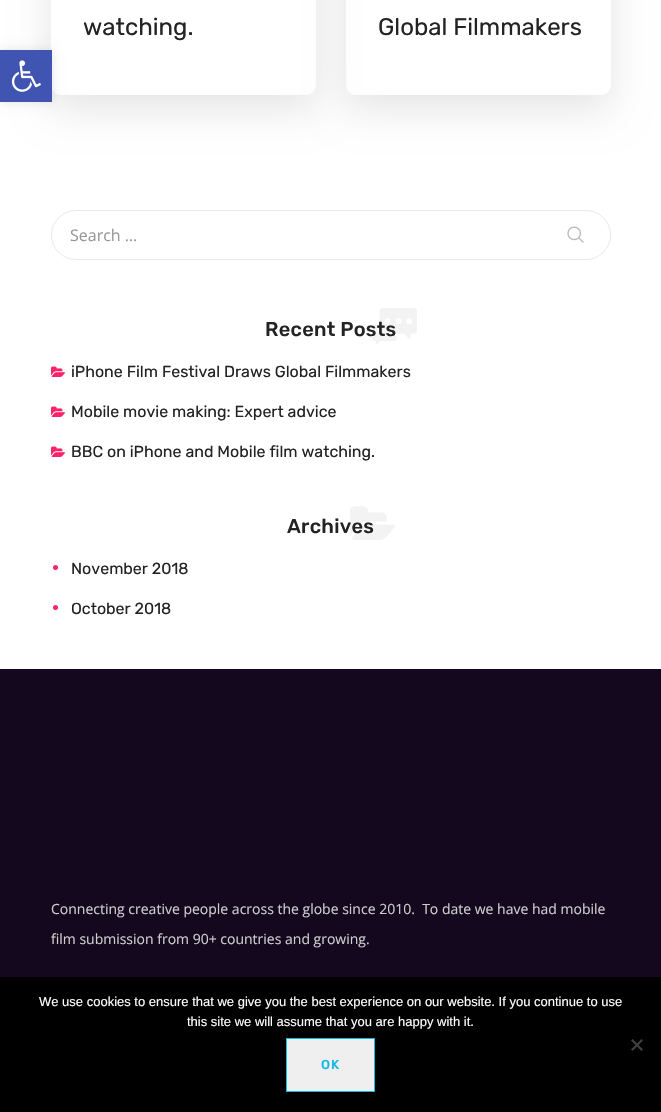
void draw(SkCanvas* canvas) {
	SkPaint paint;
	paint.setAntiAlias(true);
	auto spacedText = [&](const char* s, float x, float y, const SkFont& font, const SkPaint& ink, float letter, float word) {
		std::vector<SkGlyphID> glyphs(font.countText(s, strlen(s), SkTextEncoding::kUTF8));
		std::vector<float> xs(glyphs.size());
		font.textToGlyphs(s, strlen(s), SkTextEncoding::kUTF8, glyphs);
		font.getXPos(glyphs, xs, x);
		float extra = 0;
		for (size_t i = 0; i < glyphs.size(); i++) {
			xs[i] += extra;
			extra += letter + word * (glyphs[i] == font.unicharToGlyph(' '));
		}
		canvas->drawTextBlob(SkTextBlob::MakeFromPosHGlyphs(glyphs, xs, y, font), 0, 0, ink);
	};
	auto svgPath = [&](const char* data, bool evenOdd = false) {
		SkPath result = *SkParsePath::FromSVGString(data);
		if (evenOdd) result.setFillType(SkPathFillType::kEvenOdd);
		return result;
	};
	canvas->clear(0xffffffff);
	paint.setColor(0x1a000000);
	paint.setMaskFilter(SkMaskFilter::MakeBlur(kNormal_SkBlurStyle, 5));
	canvas->drawRect(SkRect::MakeXYWH(0, 50, 52, 52), paint);
	paint.setMaskFilter(nullptr);
	canvas->save();
	canvas->clipPath(svgPath("M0 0H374V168H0ZM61-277H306C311.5-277 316-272.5 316-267V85C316 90.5 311.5 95 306 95H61C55.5 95 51 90.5 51 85V-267C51-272.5 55.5-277 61-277Z", true), true);
	paint.setMaskFilter(SkMaskFilter::MakeBlur(kNormal_SkBlurStyle, 19));
	canvas->drawRoundRect(SkRect::MakeXYWH(51, -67, 265, 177), 10, 10, paint);
	paint.setMaskFilter(nullptr);
	canvas->restore();
	paint.setColor(0xff4054b2);
	canvas->drawRect(SkRect::MakeXYWH(0, 50, 52, 52), paint);
	canvas->drawImageRect(SkImages::DeferredFromEncodedData(SkData::MakeFromFileName("img1.png")), SkRect::MakeXYWH(11, 60, 30, 32), SkSamplingOptions());
	SkFont f1(fontMgr->matchFamilyStyle("Rubik", SkFontStyle::Normal()), 24);
	f1.setSubpixel(true);
	paint.setColor(0xff232323);
	canvas->drawString("watching.", 83, 35, f1, paint);
	canvas->save();
	canvas->clipPath(svgPath("M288 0H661V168H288ZM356-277H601C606.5-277 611-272.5 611-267V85C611 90.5 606.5 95 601 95H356C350.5 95 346 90.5 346 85V-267C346-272.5 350.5-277 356-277Z", true), true);
	paint.setColor(0x1a000000);
	paint.setMaskFilter(SkMaskFilter::MakeBlur(kNormal_SkBlurStyle, 19));
	canvas->drawRoundRect(SkRect::MakeXYWH(346, -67, 265, 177), 10, 10, paint);
	paint.setMaskFilter(nullptr);
	canvas->restore();
	paint.setColor(0xff232323);
	canvas->drawString("Global Filmmakers", 378, 35, f1, paint);
	paint.setStroke(true);
	paint.setStrokeWidth(1);
	paint.setColor(0xffe9e9e9);
	canvas->drawRoundRect(SkRect::MakeXYWH(51.5, 210.5, 559, 49), 24.5, 24.5, paint);
	SkFont f2(fontMgr->matchFamilyStyle("Open Sans", SkFontStyle::Normal()), 16);
	f2.setSubpixel(true);
	paint.setStroke(false);
	paint.setColor(0xff979797);
	canvas->drawString("Search …", 70, 241, f2, paint);
	canvas->drawImageRect(SkImages::DeferredFromEncodedData(SkData::MakeFromFileName("img2.png")), SkRect::MakeXYWH(567, 226, 17, 17), SkSamplingOptions());
	canvas->drawImageRect(SkImages::DeferredFromEncodedData(SkData::MakeFromFileName("img3.png")), SkRect::MakeXYWH(372, 308, 45, 36), SkSamplingOptions());
	SkFont f3(fontMgr->matchFamilyStyle("Rubik", SkFontStyle(500, SkFontStyle::kNormal_Width, SkFontStyle::kUpright_Slant)), 20);
	f3.setSubpixel(true);
	paint.setColor(0xff232323);
	spacedText("Recent Posts", 265, 336, f3, paint, 0.25, 0);
	canvas->drawImageRect(SkImages::DeferredFromEncodedData(SkData::MakeFromFileName("img4.png")), SkRect::MakeXYWH(51, 366, 14, 11), SkSamplingOptions());
	SkFont f4(fontMgr->matchFamilyStyle("Rubik", SkFontStyle::Normal()), 16);
	f4.setSubpixel(true);
	canvas->drawString("iPhone Film Festival Draws Global Filmmakers", 71, 377, f4, paint);
	canvas->drawImageRect(SkImages::DeferredFromEncodedData(SkData::MakeFromFileName("img4.png")), SkRect::MakeXYWH(51, 406, 14, 11), SkSamplingOptions());
	canvas->drawString("Mobile movie making: Expert advice", 71, 417, f4, paint);
	canvas->drawImageRect(SkImages::DeferredFromEncodedData(SkData::MakeFromFileName("img4.png")), SkRect::MakeXYWH(51, 446, 14, 11), SkSamplingOptions());
	canvas->drawString("BBC on iPhone and Mobile film watching.", 71, 457, f4, paint);
	canvas->drawImageRect(SkImages::DeferredFromEncodedData(SkData::MakeFromFileName("img5.png")), SkRect::MakeXYWH(350, 506, 45, 34), SkSamplingOptions());
	spacedText("Archives", 287, 533, f3, paint, 0.25, 0);
	paint.setColor(0xfffd226a);
	canvas->drawCircle(55.5, 567.5, 2.5, paint);
	paint.setColor(0xff232323);
	canvas->drawString("November 2018", 71, 574, f4, paint);
	paint.setColor(0xfffd226a);
	canvas->drawCircle(55.5, 607.5, 2.5, paint);
	paint.setColor(0xff232323);
	canvas->drawString("October 2018", 71, 614, f4, paint);
	paint.setColor(0xff14081f);
	canvas->drawRect(SkRect::MakeXYWH(0, 669, 661, 308), paint);
	SkFont f5(fontMgr->matchFamilyStyle("Open Sans", SkFontStyle::Normal()), 14);
	f5.setSubpixel(true);
	paint.setColor(0xffcdcdcd);
	canvas->drawString("Connecting creative people across the globe since 2010.  To date we have had mobile", 51, 914, f5, paint);
	canvas->drawString("film submission from 90+ countries and growing.", 51, 944, f5, paint);
	paint.setColor(0xff000000);
	canvas->drawRect(SkRect::MakeXYWH(0, 977, 661, 135), paint);
	SkFont f6(fontMgr->matchFamilyStyle("Liberation Sans", SkFontStyle::Normal()), 13);
	f6.setSubpixel(true);
	paint.setColor(0xffffffff);
	canvas->drawString("We use cookies to ensure that we give you the best experience on our website. If you continue to use", 39, 1006, f6, paint);
	canvas->drawString("this site we will assume that you are happy with it.", 187, 1026, f6, paint);
	paint.setColor(0xff404040);
	canvas->drawPath(svgPath("M641.5 1039L643 1040.5L632.5 1051L631 1049.5Z"), paint);
	canvas->drawPath(svgPath("M631 1040.5L632.5 1039L643 1049.5L641.5 1051Z"), paint);
	paint.setColor(0xffefefef);
	canvas->drawRect(SkRect::MakeXYWH(286.5, 1038.5, 88, 53), paint);
	paint.setStroke(true);
	paint.setColor(0xff14b9e4);
	canvas->drawRect(SkRect::MakeXYWH(286.5, 1038.5, 88, 53), paint);
	SkFont f7(fontMgr->matchFamilyStyle("Rubik", SkFontStyle(500, SkFontStyle::kNormal_Width, SkFontStyle::kUpright_Slant)), 13);
	f7.setSubpixel(true);
	paint.setStroke(false);
	spacedText("OK", 321, 1069, f7, paint, 1, 0);
}
